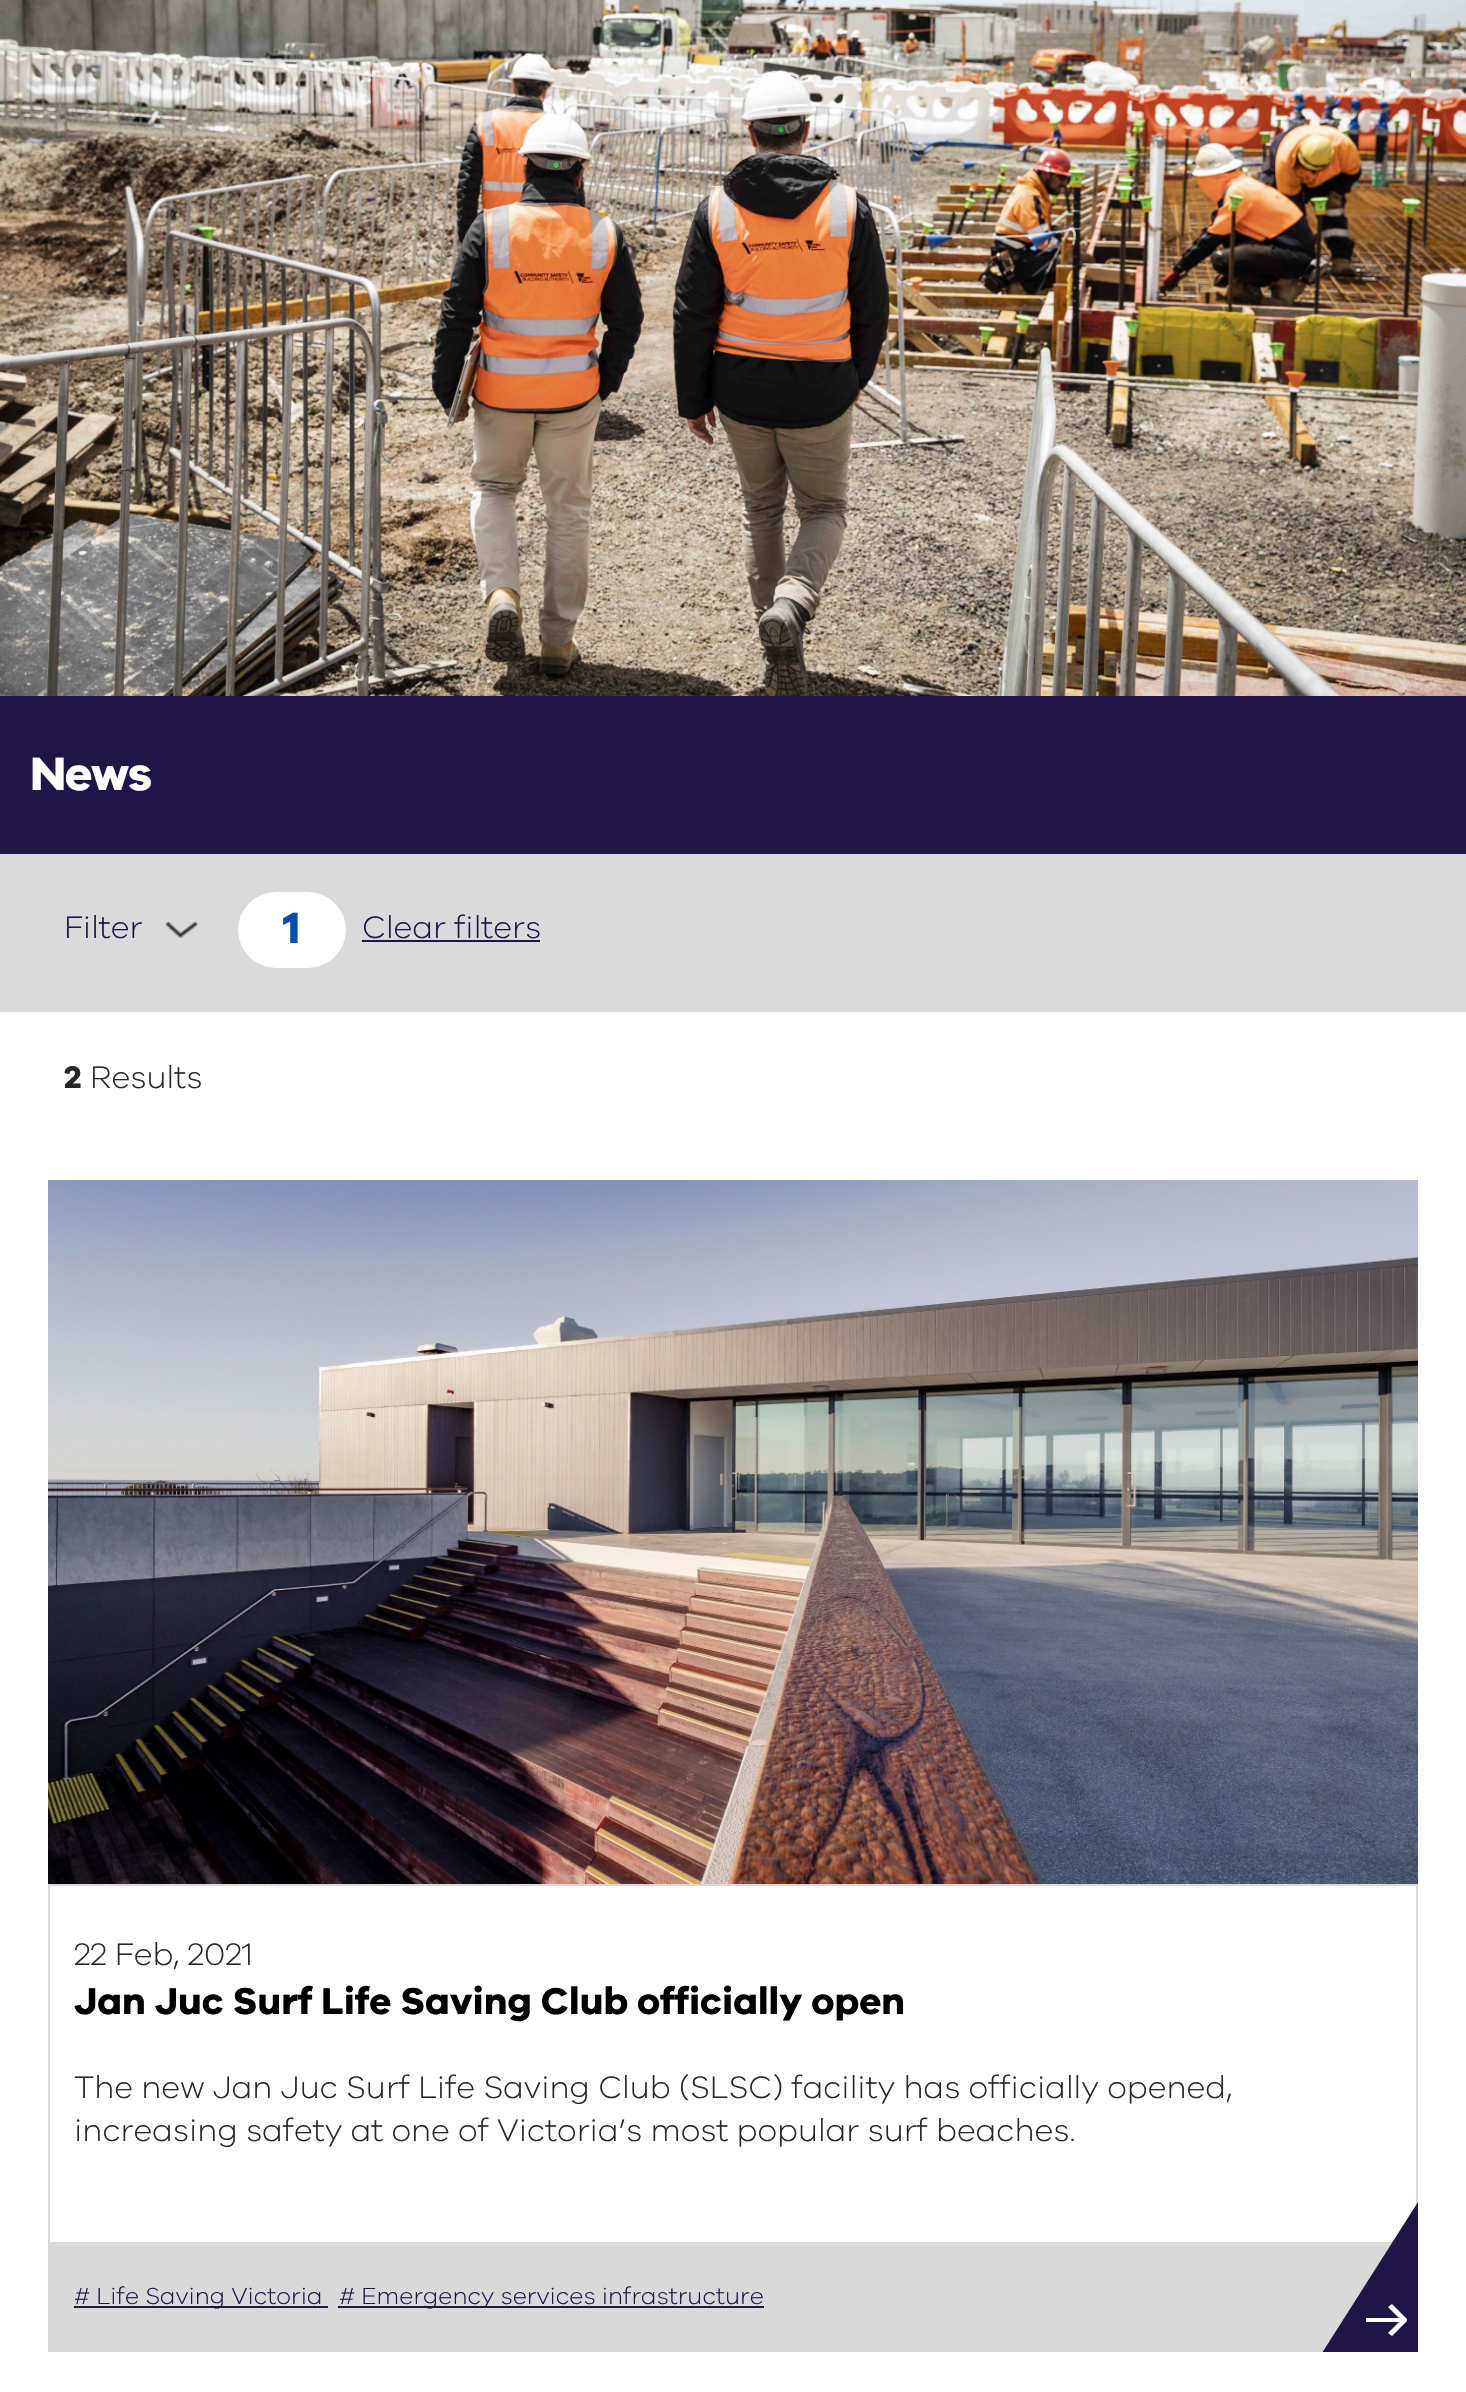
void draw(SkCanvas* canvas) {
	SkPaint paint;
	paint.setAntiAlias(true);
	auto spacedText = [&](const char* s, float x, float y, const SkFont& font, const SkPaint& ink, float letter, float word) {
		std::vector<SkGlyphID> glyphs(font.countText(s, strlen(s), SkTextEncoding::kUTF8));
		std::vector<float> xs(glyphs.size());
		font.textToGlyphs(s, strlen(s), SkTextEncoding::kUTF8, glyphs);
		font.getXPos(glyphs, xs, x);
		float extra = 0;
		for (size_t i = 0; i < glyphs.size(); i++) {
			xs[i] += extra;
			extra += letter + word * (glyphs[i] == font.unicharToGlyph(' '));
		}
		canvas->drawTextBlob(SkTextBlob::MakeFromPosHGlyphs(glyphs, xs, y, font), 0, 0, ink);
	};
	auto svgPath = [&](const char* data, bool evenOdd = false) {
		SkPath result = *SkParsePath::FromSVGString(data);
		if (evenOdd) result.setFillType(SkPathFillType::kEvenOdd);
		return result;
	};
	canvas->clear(0xffffffff);
	canvas->drawImageRect(SkImages::DeferredFromEncodedData(SkData::MakeFromFileName("img1.png")), SkRect::MakeXYWH(0, 0, 1466, 696), SkSamplingOptions());
	paint.setColor(0xff201547);
	canvas->drawRect(SkRect::MakeXYWH(0, 696, 1466, 158), paint);
	SkFont f1(fontMgr->matchFamilyStyle("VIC", SkFontStyle::Bold()), 48);
	f1.setSubpixel(true);
	paint.setColor(0xffffffff);
	spacedText("News", 30, 790, f1, paint, -1.5, 0);
	paint.setColor(0xffdadada);
	canvas->drawRect(SkRect::MakeXYWH(0, 854, 1466, 158), paint);
	SkFont f2(fontMgr->matchFamilyStyle("VIC", SkFontStyle(300, SkFontStyle::kNormal_Width, SkFontStyle::kUpright_Slant)), 32);
	f2.setSubpixel(true);
	paint.setColor(0xff201547);
	canvas->drawString("Filter", 64, 938, f2, paint);
	canvas->drawImageRect(SkImages::DeferredFromEncodedData(SkData::MakeFromFileName("img2.png")), SkRect::MakeXYWH(166, 922, 32, 16), SkSamplingOptions());
	paint.setColor(0xffffffff);
	canvas->drawRoundRect(SkRect::MakeXYWH(238, 892, 108, 76), 38, 38, paint);
	SkFont f3(fontMgr->matchFamilyStyle("VIC", SkFontStyle::Bold()), 45);
	f3.setSubpixel(true);
	paint.setColor(0xff004ead);
	canvas->drawString("1", 283, 943, f3, paint);
	paint.setColor(0xff201547);
	canvas->drawString("Clear filters", 362, 938, f2, paint);
	canvas->drawRect(SkRect::MakeXYWH(362, 940, 178, 2), paint);
	SkFont f4(fontMgr->matchFamilyStyle("VIC", SkFontStyle::Bold()), 32);
	f4.setSubpixel(true);
	paint.setColor(0xff272727);
	canvas->drawString("2", 64, 1088, f4, paint);
	canvas->drawString("Results", 90, 1088, f2, paint);
	canvas->drawImageRect(SkImages::DeferredFromEncodedData(SkData::MakeFromFileName("img3.png")), SkRect::MakeXYWH(48, 1180, 1370, 704), SkSamplingOptions());
	paint.setStroke(true);
	paint.setStrokeWidth(2);
	paint.setColor(0xffd9d9d9);
	canvas->drawRect(SkRect::MakeXYWH(49, 1885, 1368, 466), paint);
	paint.setStroke(false);
	paint.setColor(0xff272727);
	canvas->drawString("22 Feb, 2021", 74, 1965, f2, paint);
	SkFont f5(fontMgr->matchFamilyStyle("VIC", SkFontStyle::Bold()), 38.4);
	f5.setSubpixel(true);
	paint.setColor(0xff000000);
	canvas->drawString("Jan Juc Surf Life Saving Club officially open", 74, 2014, f5, paint);
	paint.setColor(0xff272727);
	canvas->drawString("The new Jan Juc Surf Life Saving Club (SLSC) facility has officially opened,", 74, 2098, f2, paint);
	canvas->drawString("increasing safety at one of Victoria’s most popular surf beaches.", 74, 2141, f2, paint);
	paint.setColor(0xffd9d9d9);
	canvas->drawRect(SkRect::MakeXYWH(50, 2242, 1343, 108), paint);
	paint.setColor(0xff201547);
	canvas->drawRect(SkRect::MakeXYWH(74, 2306, 254, 2), paint);
	SkFont f6(fontMgr->matchFamilyStyle("VIC", SkFontStyle(300, SkFontStyle::kNormal_Width, SkFontStyle::kUpright_Slant)), 24);
	f6.setSubpixel(true);
	canvas->drawString("# Life Saving Victoria", 74, 2304, f6, paint);
	canvas->drawRect(SkRect::MakeXYWH(338, 2306, 426, 2), paint);
	canvas->drawString("# Emergency services infrastructure", 339, 2304, f6, paint);
	canvas->save();
	canvas->clipRect(SkRect::MakeXYWH(1322, 2202, 96, 150));
	canvas->drawPath(svgPath("M1418 2353H1322L1418 2202Z"), paint);
	canvas->restore();
	paint.setColor(0xffffffff);
	canvas->drawPath(svgPath("M1392 2304L1388 2307L1399 2318H1366V2322H1399L1388 2333L1392 2336L1407 2321V2319Z"), paint);
}
